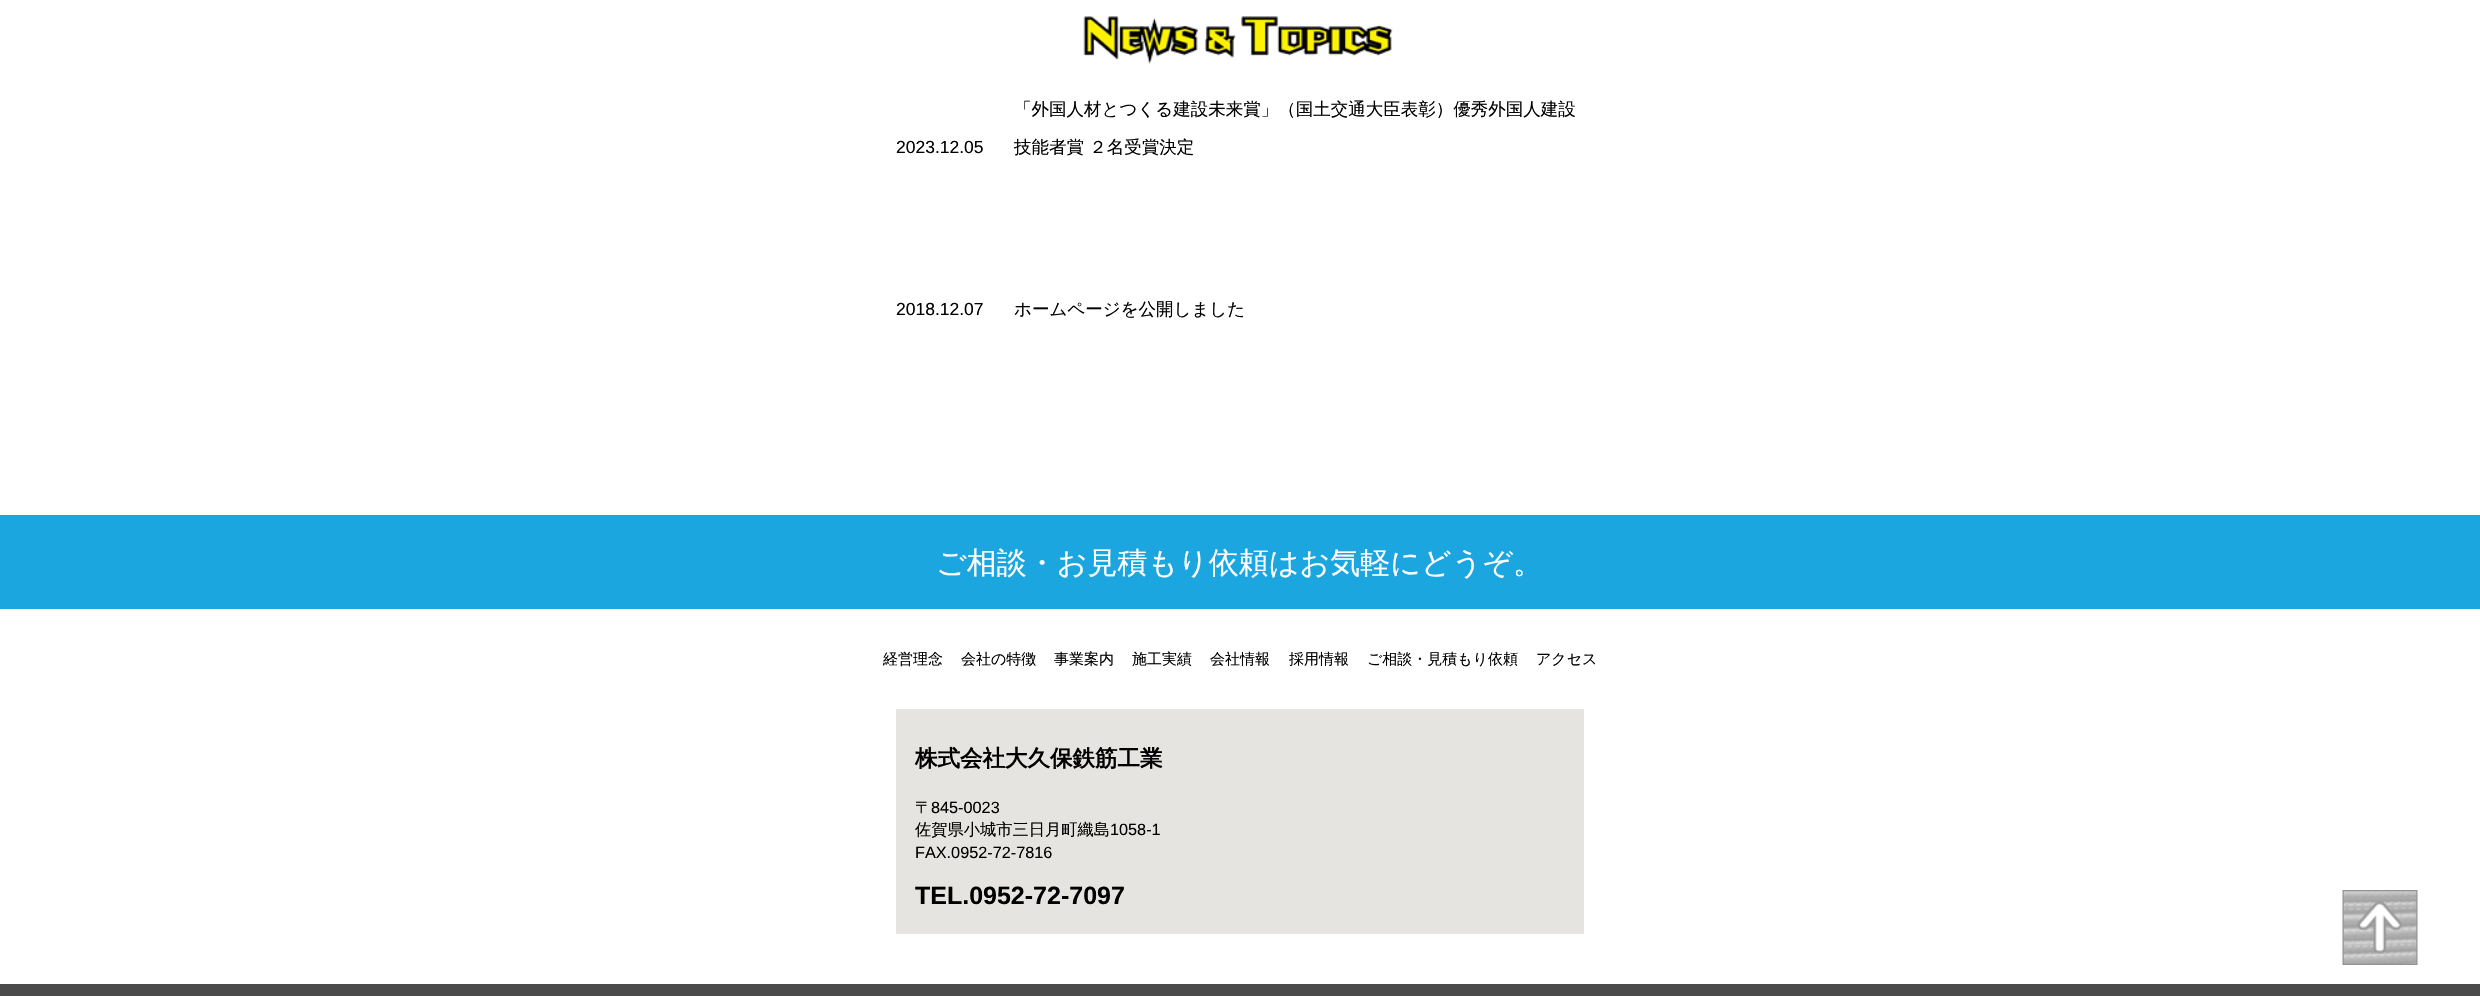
void draw(SkCanvas* canvas) {
	SkPaint paint;
	paint.setAntiAlias(true);
	canvas->clear(0xffffffff);
	canvas->drawImageRect(SkImages::DeferredFromEncodedData(SkData::MakeFromFileName("img1.png")), SkRect::MakeXYWH(1083, 16, 310, 48), SkSamplingOptions());
	SkFont f1(fontMgr->matchFamilyStyle("Liberation Sans", SkFontStyle::Normal()), 17.5);
	f1.setSubpixel(true);
	paint.setColor(0xff000000);
	canvas->drawString("2023.12.05", 896, 153, f1, paint);
	SkFont f2(fontMgr->matchFamilyStyle("WenQuanYi Zen Hei", SkFontStyle(500, SkFontStyle::kNormal_Width, SkFontStyle::kUpright_Slant)), 17.5);
	f2.setSubpixel(true);
	canvas->drawString("「外国人材とつくる建設未来賞」（国土交通大臣表彰）優秀外国人建設", 1014, 115, f2, paint);
	canvas->drawString("技能者賞 ２名受賞決定", 1014, 153, f2, paint);
	canvas->drawString("2018.12.07", 896, 315, f1, paint);
	canvas->drawString("ホームページを公開しました", 1014, 315, f2, paint);
	paint.setColor(0xff1ba6e0);
	canvas->drawRect(SkRect::MakeXYWH(0, 515, 2480, 94), paint);
	SkFont f3(fontMgr->matchFamilyStyle("WenQuanYi Zen Hei", SkFontStyle(500, SkFontStyle::kNormal_Width, SkFontStyle::kUpright_Slant)), 30);
	f3.setSubpixel(true);
	paint.setColor(0xffffffff);
	canvas->drawString("ご相談・お見積もり依頼はお気軽にどうぞ。", 936, 573, f3, paint);
	SkFont f4(fontMgr->matchFamilyStyle("WenQuanYi Zen Hei", SkFontStyle(500, SkFontStyle::kNormal_Width, SkFontStyle::kUpright_Slant)), 15);
	f4.setSubpixel(true);
	paint.setColor(0xff000000);
	canvas->drawString("経営理念", 883, 664, f4, paint);
	canvas->drawString("会社の特徴", 961, 664, f4, paint);
	canvas->drawString("事業案内", 1054, 664, f4, paint);
	canvas->drawString("施工実績", 1132, 664, f4, paint);
	canvas->drawString("会社情報", 1210, 664, f4, paint);
	canvas->drawString("採用情報", 1289, 664, f4, paint);
	canvas->drawString("ご相談・見積もり依頼", 1367, 664, f4, paint);
	canvas->drawString("アクセス", 1536, 664, f4, paint);
	paint.setColor(0xffe5e4e0);
	canvas->drawRect(SkRect::MakeXYWH(896, 709, 688, 225), paint);
	SkFont f5(fontMgr->matchFamilyStyle("WenQuanYi Zen Hei", SkFontStyle::Bold()), 22.5);
	f5.setSubpixel(true);
	paint.setColor(0xff000000);
	canvas->drawString("株式会社大久保鉄筋工業", 915, 766, f5, paint);
	SkFont f6(fontMgr->matchFamilyStyle("WenQuanYi Zen Hei", SkFontStyle(500, SkFontStyle::kNormal_Width, SkFontStyle::kUpright_Slant)), 16.25);
	f6.setSubpixel(true);
	canvas->drawString("〒", 915, 813, f6, paint);
	SkFont f7(fontMgr->matchFamilyStyle("Liberation Sans", SkFontStyle::Normal()), 16.25);
	f7.setSubpixel(true);
	canvas->drawString("845-0023", 931, 813, f7, paint);
	canvas->drawString("佐賀県小城市三日月町織島", 915, 835, f6, paint);
	canvas->drawString("1058-1", 1110, 835, f7, paint);
	canvas->drawString("FAX.0952-72-7816", 915, 858, f7, paint);
	SkFont f8(fontMgr->matchFamilyStyle("Liberation Sans", SkFontStyle::Bold()), 25);
	f8.setSubpixel(true);
	canvas->drawString("TEL.0952-72-7097", 915, 904, f8, paint);
	canvas->drawImageRect(SkImages::DeferredFromEncodedData(SkData::MakeFromFileName("img2.png")), SkRect::MakeXYWH(2342, 890, 76, 75), SkSamplingOptions());
	paint.setColor(0xff4c4b4b);
	canvas->drawRect(SkRect::MakeXYWH(0, 984, 2480, 12), paint);
}
